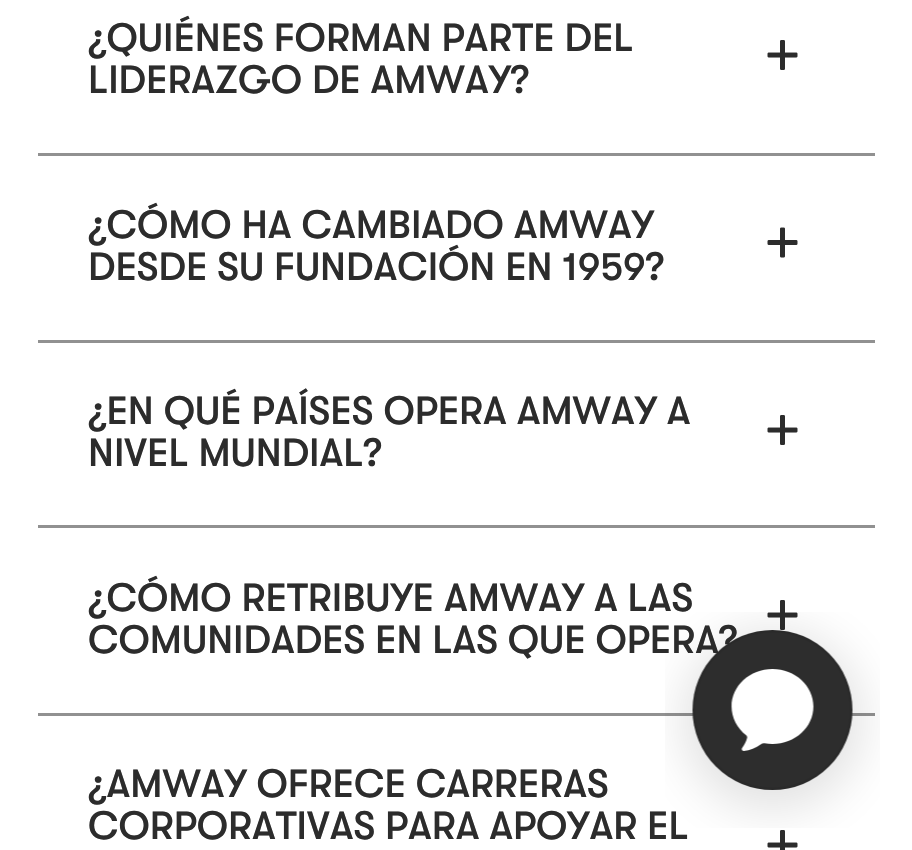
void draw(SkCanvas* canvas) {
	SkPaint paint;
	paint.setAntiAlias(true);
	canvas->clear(0xffffffff);
	paint.setColor(0xff919191);
	canvas->drawRect(SkRect::MakeXYWH(38, 153, 837, 3), paint);
	SkFont f1(fontMgr->matchFamilyStyle("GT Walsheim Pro", SkFontStyle(500, SkFontStyle::kNormal_Width, SkFontStyle::kUpright_Slant)), 39.4);
	f1.setSubpixel(true);
	paint.setColor(0xff2c2c2c);
	canvas->drawString("¿QUIÉNES FORMAN PARTE DEL", 88, 51, f1, paint);
	canvas->drawString("LIDERAZGO DE AMWAY?", 88, 93, f1, paint);
	canvas->drawImageRect(SkImages::DeferredFromEncodedData(SkData::MakeFromFileName("img1.png")), SkRect::MakeXYWH(767, 40, 31, 30), SkSamplingOptions());
	paint.setColor(0xff919191);
	canvas->drawRect(SkRect::MakeXYWH(38, 340, 837, 3), paint);
	paint.setColor(0xff2c2c2c);
	canvas->drawString("¿CÓMO HA CAMBIADO AMWAY", 88, 238, f1, paint);
	canvas->drawString("DESDE SU FUNDACIÓN EN 1959?", 88, 280, f1, paint);
	canvas->drawImageRect(SkImages::DeferredFromEncodedData(SkData::MakeFromFileName("img2.png")), SkRect::MakeXYWH(767, 227, 31, 31), SkSamplingOptions());
	paint.setColor(0xff919191);
	canvas->drawRect(SkRect::MakeXYWH(38, 525, 837, 3), paint);
	paint.setColor(0xff2c2c2c);
	canvas->drawString("¿EN QUÉ PAÍSES OPERA AMWAY A", 88, 424, f1, paint);
	canvas->drawString("NIVEL MUNDIAL?", 88, 466, f1, paint);
	canvas->drawImageRect(SkImages::DeferredFromEncodedData(SkData::MakeFromFileName("img1.png")), SkRect::MakeXYWH(767, 415, 31, 30), SkSamplingOptions());
	paint.setColor(0xff919191);
	canvas->drawRect(SkRect::MakeXYWH(38, 713, 837, 3), paint);
	paint.setColor(0xff2c2c2c);
	canvas->drawString("¿CÓMO RETRIBUYE AMWAY A LAS", 88, 611, f1, paint);
	canvas->drawString("COMUNIDADES EN LAS QUE OPERA?", 88, 653, f1, paint);
	canvas->drawImageRect(SkImages::DeferredFromEncodedData(SkData::MakeFromFileName("img1.png")), SkRect::MakeXYWH(767, 600, 31, 30), SkSamplingOptions());
	canvas->drawString("¿AMWAY OFRECE CARRERAS", 88, 797, f1, paint);
	canvas->drawString("CORPORATIVAS PARA APOYAR EL", 88, 839, f1, paint);
	canvas->drawImageRect(SkImages::DeferredFromEncodedData(SkData::MakeFromFileName("img3.png")), SkRect::MakeXYWH(767, 830, 31, 20), SkSamplingOptions());
	canvas->drawImageRect(SkImages::DeferredFromEncodedData(SkData::MakeFromFileName("img4.png")), SkRect::MakeXYWH(665, 612, 215, 216), SkSamplingOptions());
}
